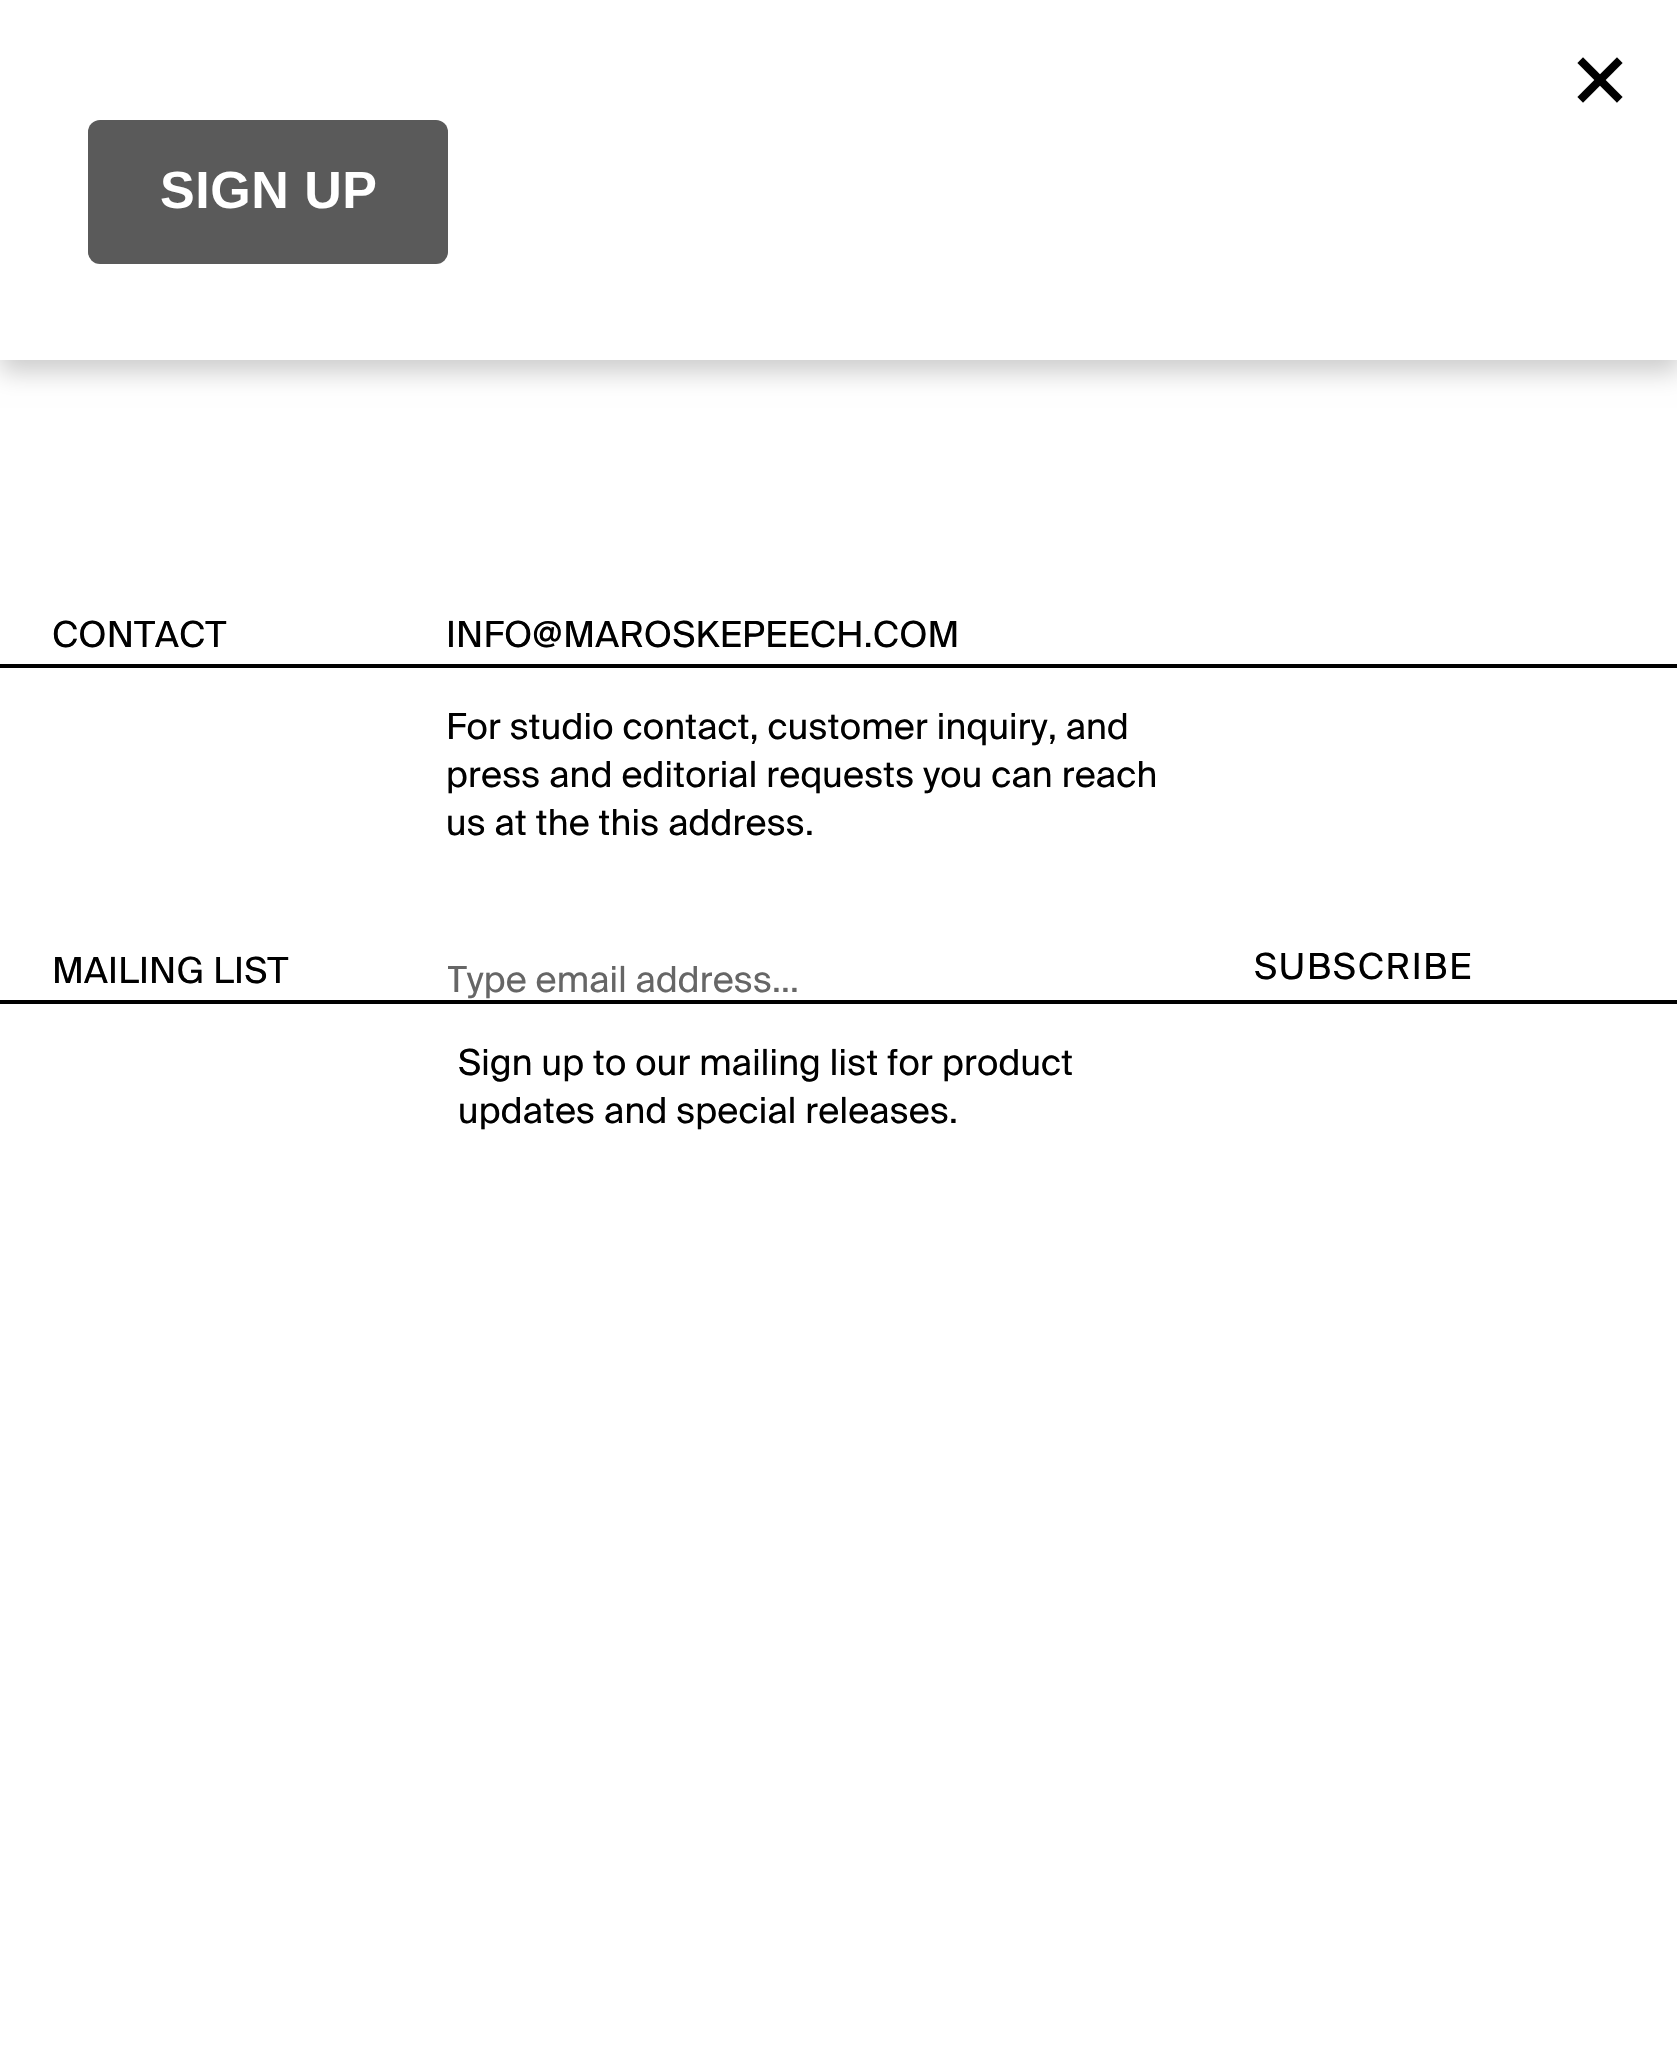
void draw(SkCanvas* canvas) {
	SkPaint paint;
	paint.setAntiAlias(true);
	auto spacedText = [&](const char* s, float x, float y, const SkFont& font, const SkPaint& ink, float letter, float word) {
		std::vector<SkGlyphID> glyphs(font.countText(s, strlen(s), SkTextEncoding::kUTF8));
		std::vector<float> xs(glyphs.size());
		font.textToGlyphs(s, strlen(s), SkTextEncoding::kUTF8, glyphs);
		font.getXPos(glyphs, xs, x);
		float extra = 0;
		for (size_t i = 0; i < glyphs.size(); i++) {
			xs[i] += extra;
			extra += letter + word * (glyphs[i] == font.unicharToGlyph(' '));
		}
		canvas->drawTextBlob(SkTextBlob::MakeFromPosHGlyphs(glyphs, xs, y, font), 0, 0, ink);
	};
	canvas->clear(0xffffffff);
	paint.setColor(0x33000000);
	paint.setMaskFilter(SkMaskFilter::MakeBlur(kNormal_SkBlurStyle, 12));
	canvas->drawRect(SkRect::MakeXYWH(0, 12, 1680, 360), paint);
	paint.setMaskFilter(nullptr);
	paint.setColor(0xffffffff);
	canvas->drawRect(SkRect::MakeXYWH(0, 0, 1677, 360), paint);
	canvas->drawImageRect(SkImages::DeferredFromEncodedData(SkData::MakeFromFileName("img1.png")), SkRect::MakeXYWH(88, 57, 1535, 207), SkSamplingOptions());
	paint.setColor(0xff000000);
	canvas->drawRect(SkRect::MakeXYWH(0, 664, 1677, 4), paint);
	SkFont f1(fontMgr->matchFamilyStyle("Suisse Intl", SkFontStyle::Normal()), 36);
	f1.setSubpixel(true);
	spacedText("CONTACT", 52, 647, f1, paint, 0.25, 0);
	spacedText("INFO@MAROSKEPEECH.COM", 446, 647, f1, paint, 0.25, 0);
	spacedText("For studio contact, customer inquiry, and", 446, 739, f1, paint, 0.25, 0);
	spacedText("press and editorial requests you can reach", 446, 787, f1, paint, 0.25, 0);
	spacedText("us at the this address.", 446, 835, f1, paint, 0.25, 0);
	canvas->drawRect(SkRect::MakeXYWH(0, 1000, 1677, 4), paint);
	spacedText("MAILING LIST", 52, 983, f1, paint, 0.25, 0);
	canvas->save();
	canvas->clipRect(SkRect::MakeXYWH(448, 964, 748, 36));
	paint.setColor(0xff666666);
	spacedText("Type email address...", 446, 992, f1, paint, 0.2, 0);
	canvas->restore();
	paint.setColor(0xff000000);
	spacedText("SUBSCRIBE", 1254, 979, f1, paint, 1.75, 0);
	spacedText("Sign up to our mailing list for product", 458, 1075, f1, paint, 0.25, 0);
	spacedText("updates and special releases.", 458, 1123, f1, paint, 0.25, 0);
}
